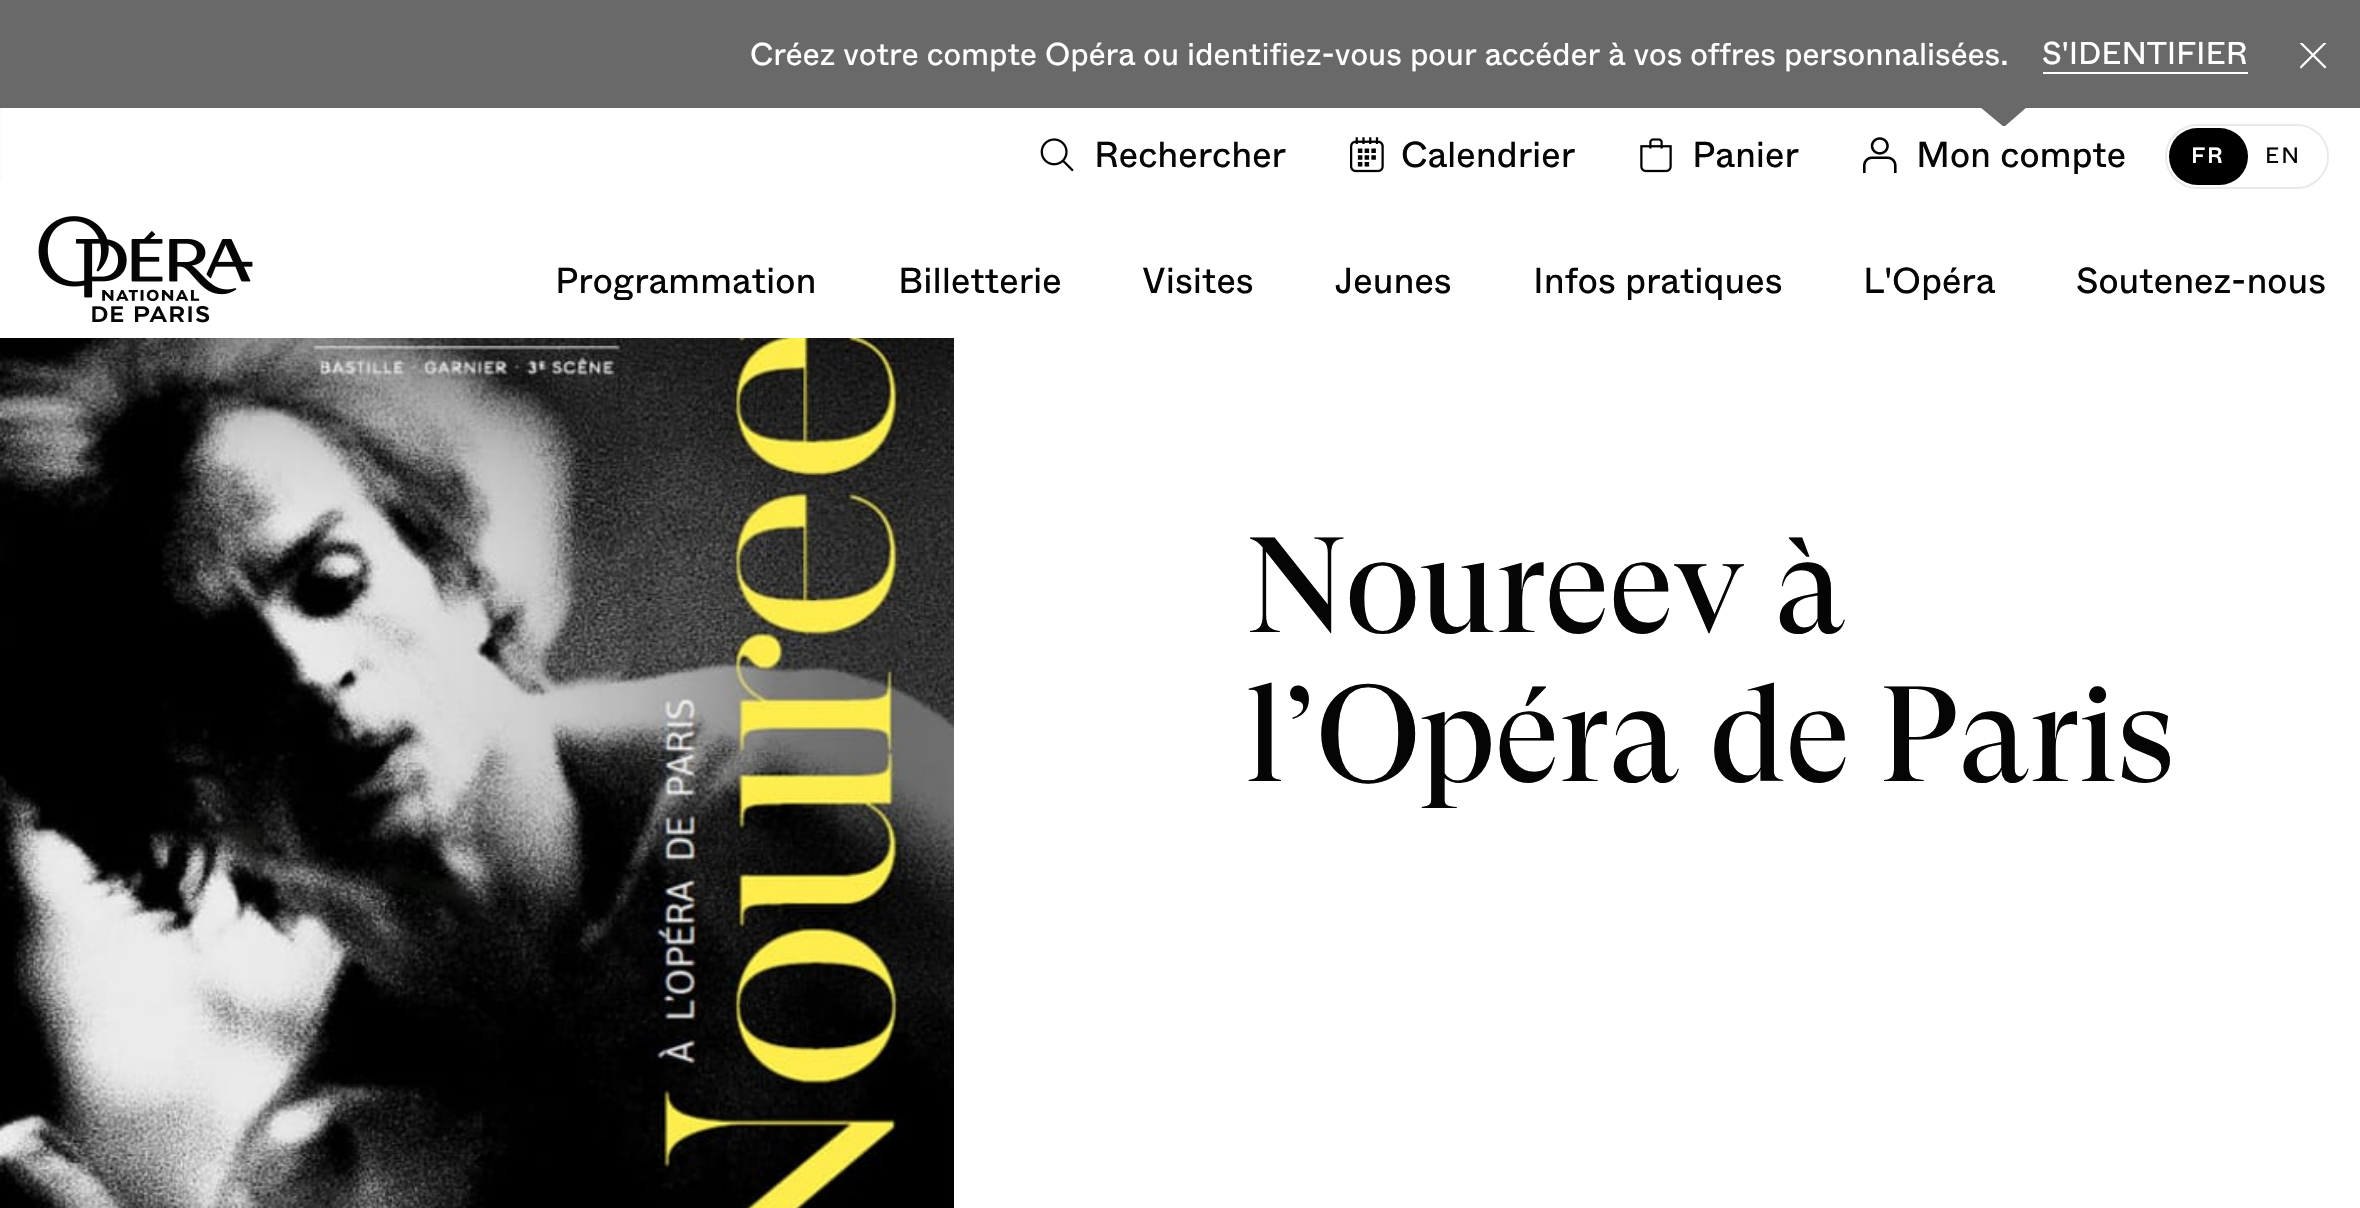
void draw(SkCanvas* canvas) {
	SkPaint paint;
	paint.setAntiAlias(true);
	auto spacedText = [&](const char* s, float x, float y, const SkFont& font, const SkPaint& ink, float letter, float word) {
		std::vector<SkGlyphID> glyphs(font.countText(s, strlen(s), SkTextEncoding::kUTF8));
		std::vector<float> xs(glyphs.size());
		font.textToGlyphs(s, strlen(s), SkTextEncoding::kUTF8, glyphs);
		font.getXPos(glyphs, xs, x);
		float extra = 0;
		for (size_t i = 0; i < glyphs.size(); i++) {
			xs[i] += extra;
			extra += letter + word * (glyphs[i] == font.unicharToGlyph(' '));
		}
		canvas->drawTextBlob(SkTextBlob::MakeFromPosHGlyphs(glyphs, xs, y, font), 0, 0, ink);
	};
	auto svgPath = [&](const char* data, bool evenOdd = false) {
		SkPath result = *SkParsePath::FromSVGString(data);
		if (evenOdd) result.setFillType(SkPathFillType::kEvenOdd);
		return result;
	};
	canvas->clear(0xffffffff);
	paint.setColor(0xff696969);
	canvas->drawRect(SkRect::MakeXYWH(0, 0, 2360, 108), paint);
	SkFont f1(fontMgr->matchFamilyStyle("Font", SkFontStyle::Normal()), 31.5);
	f1.setSubpixel(true);
	paint.setColor(0xffffffff);
	canvas->drawString("Créez votre compte Opéra ou identifiez-vous pour accéder à vos offres personnalisées.", 750, 65, f1, paint);
	canvas->drawRect(SkRect::MakeXYWH(2043, 72, 205, 2), paint);
	canvas->drawString("S'IDENTIFIER", 2042, 64, f1, paint);
	canvas->drawImageRect(SkImages::DeferredFromEncodedData(SkData::MakeFromFileName("img1.png")), SkRect::MakeXYWH(2300, 43, 27, 26), SkSamplingOptions());
	canvas->drawImageRect(SkImages::DeferredFromEncodedData(SkData::MakeFromFileName("img2.png")), SkRect::MakeXYWH(1040, 138, 34, 34), SkSamplingOptions());
	SkFont f2(fontMgr->matchFamilyStyle("Font", SkFontStyle::Normal()), 36);
	f2.setSubpixel(true);
	paint.setColor(0xff050505);
	canvas->drawString("Rechercher", 1094, 167, f2, paint);
	canvas->drawImageRect(SkImages::DeferredFromEncodedData(SkData::MakeFromFileName("img3.png")), SkRect::MakeXYWH(1350, 137, 34, 36), SkSamplingOptions());
	canvas->drawString("Calendrier", 1401, 167, f2, paint);
	canvas->drawImageRect(SkImages::DeferredFromEncodedData(SkData::MakeFromFileName("img4.png")), SkRect::MakeXYWH(1640, 138, 32, 35), SkSamplingOptions());
	canvas->drawString("Panier", 1692, 167, f2, paint);
	canvas->save();
	canvas->clipRect(SkRect::MakeXYWH(1980, 108, 47, 18));
	paint.setColor(0xff696969);
	canvas->drawPath(svgPath("M2004 127L1980 107H2027Z"), paint);
	canvas->restore();
	canvas->drawImageRect(SkImages::DeferredFromEncodedData(SkData::MakeFromFileName("img5.png")), SkRect::MakeXYWH(1863, 137, 34, 36), SkSamplingOptions());
	paint.setColor(0xff050505);
	canvas->drawString("Mon compte", 1916, 167, f2, paint);
	paint.setStroke(true);
	paint.setStrokeWidth(2);
	paint.setColor(0xffe9e9e9);
	canvas->drawRoundRect(SkRect::MakeXYWH(2166, 125, 162, 63), 31.5, 31.5, paint);
	paint.setStroke(false);
	paint.setColor(0xffffffff);
	canvas->drawRoundRect(SkRect::MakeXYWH(2168, 127, 158, 59), 29.5, 29.5, paint);
	paint.setStroke(true);
	canvas->drawRoundRect(SkRect::MakeXYWH(2168, 127, 158, 59), 29.5, 29.5, paint);
	paint.setStroke(false);
	paint.setColor(0xff000000);
	canvas->drawRoundRect(SkRect::MakeXYWH(2169, 128, 79, 57), 28.5, 28.5, paint);
	SkFont f3(fontMgr->matchFamilyStyle("Font", SkFontStyle(500, SkFontStyle::kNormal_Width, SkFontStyle::kUpright_Slant)), 22);
	f3.setSubpixel(true);
	paint.setColor(0xffffffff);
	spacedText("FR", 2191, 163, f3, paint, 2, 0);
	SkFont f4(fontMgr->matchFamilyStyle("Font", SkFontStyle::Normal()), 22);
	f4.setSubpixel(true);
	paint.setColor(0xff050505);
	spacedText("EN", 2265, 163, f4, paint, 2, 0);
	canvas->drawImageRect(SkImages::DeferredFromEncodedData(SkData::MakeFromFileName("img6.png")), SkRect::MakeXYWH(38, 216, 215, 107), SkSamplingOptions());
	canvas->drawString("Programmation", 555, 293, f2, paint);
	canvas->drawString("Billetterie", 898, 293, f2, paint);
	canvas->drawString("Visites", 1142, 293, f2, paint);
	canvas->drawString("Jeunes", 1335, 293, f2, paint);
	canvas->drawString("Infos pratiques", 1533, 293, f2, paint);
	canvas->drawString("L'Opéra", 1863, 293, f2, paint);
	canvas->drawString("Soutenez-nous", 2076, 293, f2, paint);
	paint.setColor(0xfffbfbfb);
	canvas->drawRect(SkRect::MakeXYWH(0, 108, 2, 72), paint);
	canvas->drawImageRect(SkImages::DeferredFromEncodedData(SkData::MakeFromFileName("img7.png")), SkRect::MakeXYWH(0, 338, 954, 870), SkSamplingOptions());
	SkFont f5(fontMgr->matchFamilyStyle("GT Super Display", SkFontStyle::Normal()), 135);
	f5.setSubpixel(true);
	paint.setColor(0xff050505);
	canvas->drawString("Noureev à", 1246, 632, f5, paint);
	canvas->drawString("l’Opéra de Paris", 1246, 781, f5, paint);
}
